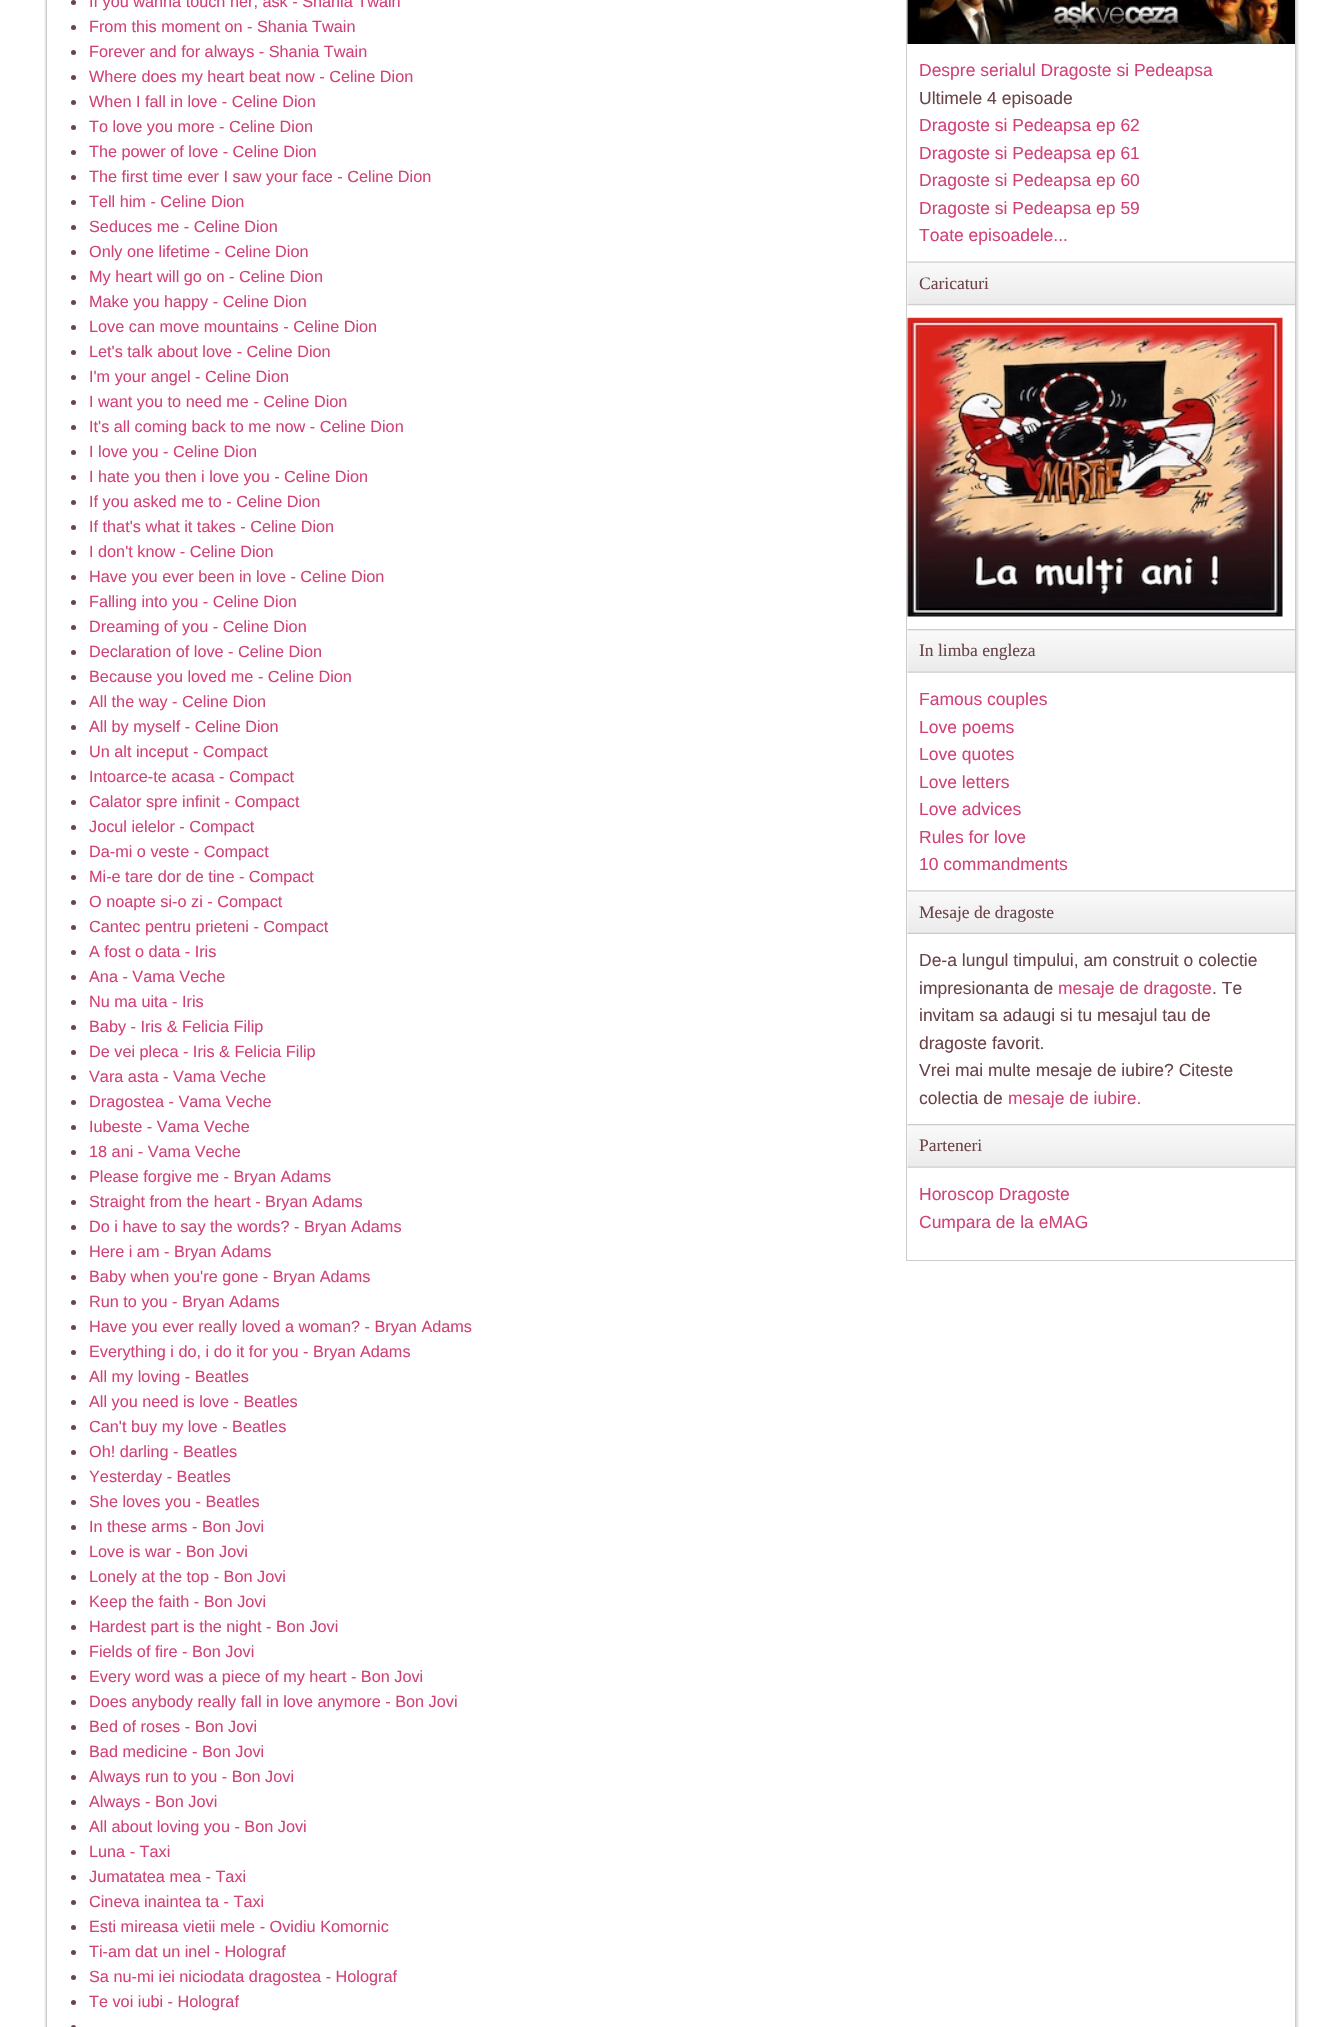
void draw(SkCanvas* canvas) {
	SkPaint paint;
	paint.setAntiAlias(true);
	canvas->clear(0xffffffff);
	paint.setColor(0xffdedede);
	paint.setMaskFilter(SkMaskFilter::MakeBlur(kNormal_SkBlurStyle, 1));
	canvas->drawRoundRect(SkRect::MakeXYWH(45, -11, 1253, 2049), 8, 8, paint);
	paint.setMaskFilter(nullptr);
	paint.setColor(0xffffffff);
	canvas->drawRect(SkRect::MakeXYWH(46.5, -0.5, 1249, 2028), paint);
	paint.setStroke(true);
	paint.setStrokeWidth(1);
	paint.setColor(0xffcccccc);
	canvas->drawRect(SkRect::MakeXYWH(46.5, -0.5, 1249, 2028), paint);
	paint.setStroke(false);
	paint.setColor(0xff6b4449);
	canvas->drawCircle(73.5, 2.5, 2.5, paint);
	SkFont f1(fontMgr->matchFamilyStyle("Liberation Sans", SkFontStyle::Normal()), 16.25);
	f1.setSubpixel(true);
	paint.setColor(0xffd14279);
	canvas->drawString("If you wanna touch her, ask - Shania Twain", 89, 7, f1, paint);
	paint.setColor(0xff6b4449);
	canvas->drawCircle(73.5, 27.5, 2.5, paint);
	paint.setColor(0xffd14279);
	canvas->drawString("From this moment on - Shania Twain", 89, 32, f1, paint);
	paint.setColor(0xff6b4449);
	canvas->drawCircle(73.5, 52.5, 2.5, paint);
	paint.setColor(0xffd14279);
	canvas->drawString("Forever and for always - Shania Twain", 89, 57, f1, paint);
	paint.setColor(0xff6b4449);
	canvas->drawCircle(73.5, 77.5, 2.5, paint);
	paint.setColor(0xffd14279);
	canvas->drawString("Where does my heart beat now - Celine Dion", 89, 82, f1, paint);
	paint.setColor(0xff6b4449);
	canvas->drawCircle(73.5, 102.5, 2.5, paint);
	paint.setColor(0xffd14279);
	canvas->drawString("When I fall in love - Celine Dion", 89, 107, f1, paint);
	paint.setColor(0xff6b4449);
	canvas->drawCircle(73.5, 127.5, 2.5, paint);
	paint.setColor(0xffd14279);
	canvas->drawString("To love you more - Celine Dion", 89, 132, f1, paint);
	paint.setColor(0xff6b4449);
	canvas->drawCircle(73.5, 152.5, 2.5, paint);
	paint.setColor(0xffd14279);
	canvas->drawString("The power of love - Celine Dion", 89, 157, f1, paint);
	paint.setColor(0xff6b4449);
	canvas->drawCircle(73.5, 177.5, 2.5, paint);
	paint.setColor(0xffd14279);
	canvas->drawString("The first time ever I saw your face - Celine Dion", 89, 182, f1, paint);
	paint.setColor(0xff6b4449);
	canvas->drawCircle(73.5, 202.5, 2.5, paint);
	paint.setColor(0xffd14279);
	canvas->drawString("Tell him - Celine Dion", 89, 207, f1, paint);
	paint.setColor(0xff6b4449);
	canvas->drawCircle(73.5, 227.5, 2.5, paint);
	paint.setColor(0xffd14279);
	canvas->drawString("Seduces me - Celine Dion", 89, 232, f1, paint);
	paint.setColor(0xff6b4449);
	canvas->drawCircle(73.5, 252.5, 2.5, paint);
	paint.setColor(0xffd14279);
	canvas->drawString("Only one lifetime - Celine Dion", 89, 257, f1, paint);
	paint.setColor(0xff6b4449);
	canvas->drawCircle(73.5, 277.5, 2.5, paint);
	paint.setColor(0xffd14279);
	canvas->drawString("My heart will go on - Celine Dion", 89, 282, f1, paint);
	paint.setColor(0xff6b4449);
	canvas->drawCircle(73.5, 302.5, 2.5, paint);
	paint.setColor(0xffd14279);
	canvas->drawString("Make you happy - Celine Dion", 89, 307, f1, paint);
	paint.setColor(0xff6b4449);
	canvas->drawCircle(73.5, 327.5, 2.5, paint);
	paint.setColor(0xffd14279);
	canvas->drawString("Love can move mountains - Celine Dion", 89, 332, f1, paint);
	paint.setColor(0xff6b4449);
	canvas->drawCircle(73.5, 352.5, 2.5, paint);
	paint.setColor(0xffd14279);
	canvas->drawString("Let's talk about love - Celine Dion", 89, 357, f1, paint);
	paint.setColor(0xff6b4449);
	canvas->drawCircle(73.5, 377.5, 2.5, paint);
	paint.setColor(0xffd14279);
	canvas->drawString("I'm your angel - Celine Dion", 89, 382, f1, paint);
	paint.setColor(0xff6b4449);
	canvas->drawCircle(73.5, 402.5, 2.5, paint);
	paint.setColor(0xffd14279);
	canvas->drawString("I want you to need me - Celine Dion", 89, 407, f1, paint);
	paint.setColor(0xff6b4449);
	canvas->drawCircle(73.5, 427.5, 2.5, paint);
	paint.setColor(0xffd14279);
	canvas->drawString("It's all coming back to me now - Celine Dion", 89, 432, f1, paint);
	paint.setColor(0xff6b4449);
	canvas->drawCircle(73.5, 452.5, 2.5, paint);
	paint.setColor(0xffd14279);
	canvas->drawString("I love you - Celine Dion", 89, 457, f1, paint);
	paint.setColor(0xff6b4449);
	canvas->drawCircle(73.5, 477.5, 2.5, paint);
	paint.setColor(0xffd14279);
	canvas->drawString("I hate you then i love you - Celine Dion", 89, 482, f1, paint);
	paint.setColor(0xff6b4449);
	canvas->drawCircle(73.5, 502.5, 2.5, paint);
	paint.setColor(0xffd14279);
	canvas->drawString("If you asked me to - Celine Dion", 89, 507, f1, paint);
	paint.setColor(0xff6b4449);
	canvas->drawCircle(73.5, 527.5, 2.5, paint);
	paint.setColor(0xffd14279);
	canvas->drawString("If that's what it takes - Celine Dion", 89, 532, f1, paint);
	paint.setColor(0xff6b4449);
	canvas->drawCircle(73.5, 552.5, 2.5, paint);
	paint.setColor(0xffd14279);
	canvas->drawString("I don't know - Celine Dion", 89, 557, f1, paint);
	paint.setColor(0xff6b4449);
	canvas->drawCircle(73.5, 577.5, 2.5, paint);
	paint.setColor(0xffd14279);
	canvas->drawString("Have you ever been in love - Celine Dion", 89, 582, f1, paint);
	paint.setColor(0xff6b4449);
	canvas->drawCircle(73.5, 602.5, 2.5, paint);
	paint.setColor(0xffd14279);
	canvas->drawString("Falling into you - Celine Dion", 89, 607, f1, paint);
	paint.setColor(0xff6b4449);
	canvas->drawCircle(73.5, 627.5, 2.5, paint);
	paint.setColor(0xffd14279);
	canvas->drawString("Dreaming of you - Celine Dion", 89, 632, f1, paint);
	paint.setColor(0xff6b4449);
	canvas->drawCircle(73.5, 652.5, 2.5, paint);
	paint.setColor(0xffd14279);
	canvas->drawString("Declaration of love - Celine Dion", 89, 657, f1, paint);
	paint.setColor(0xff6b4449);
	canvas->drawCircle(73.5, 677.5, 2.5, paint);
	paint.setColor(0xffd14279);
	canvas->drawString("Because you loved me - Celine Dion", 89, 682, f1, paint);
	paint.setColor(0xff6b4449);
	canvas->drawCircle(73.5, 702.5, 2.5, paint);
	paint.setColor(0xffd14279);
	canvas->drawString("All the way - Celine Dion", 89, 707, f1, paint);
	paint.setColor(0xff6b4449);
	canvas->drawCircle(73.5, 727.5, 2.5, paint);
	paint.setColor(0xffd14279);
	canvas->drawString("All by myself - Celine Dion", 89, 732, f1, paint);
	paint.setColor(0xff6b4449);
	canvas->drawCircle(73.5, 752.5, 2.5, paint);
	paint.setColor(0xffd14279);
	canvas->drawString("Un alt inceput - Compact", 89, 757, f1, paint);
	paint.setColor(0xff6b4449);
	canvas->drawCircle(73.5, 777.5, 2.5, paint);
	paint.setColor(0xffd14279);
	canvas->drawString("Intoarce-te acasa - Compact", 89, 782, f1, paint);
	paint.setColor(0xff6b4449);
	canvas->drawCircle(73.5, 802.5, 2.5, paint);
	paint.setColor(0xffd14279);
	canvas->drawString("Calator spre infinit - Compact", 89, 807, f1, paint);
	paint.setColor(0xff6b4449);
	canvas->drawCircle(73.5, 827.5, 2.5, paint);
	paint.setColor(0xffd14279);
	canvas->drawString("Jocul ielelor - Compact", 89, 832, f1, paint);
	paint.setColor(0xff6b4449);
	canvas->drawCircle(73.5, 852.5, 2.5, paint);
	paint.setColor(0xffd14279);
	canvas->drawString("Da-mi o veste - Compact", 89, 857, f1, paint);
	paint.setColor(0xff6b4449);
	canvas->drawCircle(73.5, 877.5, 2.5, paint);
	paint.setColor(0xffd14279);
	canvas->drawString("Mi-e tare dor de tine - Compact", 89, 882, f1, paint);
	paint.setColor(0xff6b4449);
	canvas->drawCircle(73.5, 902.5, 2.5, paint);
	paint.setColor(0xffd14279);
	canvas->drawString("O noapte si-o zi - Compact", 89, 907, f1, paint);
	paint.setColor(0xff6b4449);
	canvas->drawCircle(73.5, 927.5, 2.5, paint);
	paint.setColor(0xffd14279);
	canvas->drawString("Cantec pentru prieteni - Compact", 89, 932, f1, paint);
	paint.setColor(0xff6b4449);
	canvas->drawCircle(73.5, 952.5, 2.5, paint);
	paint.setColor(0xffd14279);
	canvas->drawString("A fost o data - Iris", 89, 957, f1, paint);
	paint.setColor(0xff6b4449);
	canvas->drawCircle(73.5, 977.5, 2.5, paint);
	paint.setColor(0xffd14279);
	canvas->drawString("Ana - Vama Veche", 89, 982, f1, paint);
	paint.setColor(0xff6b4449);
	canvas->drawCircle(73.5, 1002.5, 2.5, paint);
	paint.setColor(0xffd14279);
	canvas->drawString("Nu ma uita - Iris", 89, 1007, f1, paint);
	paint.setColor(0xff6b4449);
	canvas->drawCircle(73.5, 1027.5, 2.5, paint);
	paint.setColor(0xffd14279);
	canvas->drawString("Baby - Iris & Felicia Filip", 89, 1032, f1, paint);
	paint.setColor(0xff6b4449);
	canvas->drawCircle(73.5, 1052.5, 2.5, paint);
	paint.setColor(0xffd14279);
	canvas->drawString("De vei pleca - Iris & Felicia Filip", 89, 1057, f1, paint);
	paint.setColor(0xff6b4449);
	canvas->drawCircle(73.5, 1077.5, 2.5, paint);
	paint.setColor(0xffd14279);
	canvas->drawString("Vara asta - Vama Veche", 89, 1082, f1, paint);
	paint.setColor(0xff6b4449);
	canvas->drawCircle(73.5, 1102.5, 2.5, paint);
	paint.setColor(0xffd14279);
	canvas->drawString("Dragostea - Vama Veche", 89, 1107, f1, paint);
	paint.setColor(0xff6b4449);
	canvas->drawCircle(73.5, 1127.5, 2.5, paint);
	paint.setColor(0xffd14279);
	canvas->drawString("Iubeste - Vama Veche", 89, 1132, f1, paint);
	paint.setColor(0xff6b4449);
	canvas->drawCircle(73.5, 1152.5, 2.5, paint);
	paint.setColor(0xffd14279);
	canvas->drawString("18 ani - Vama Veche", 89, 1157, f1, paint);
	paint.setColor(0xff6b4449);
	canvas->drawCircle(73.5, 1177.5, 2.5, paint);
	paint.setColor(0xffd14279);
	canvas->drawString("Please forgive me - Bryan Adams", 89, 1182, f1, paint);
	paint.setColor(0xff6b4449);
	canvas->drawCircle(73.5, 1202.5, 2.5, paint);
	paint.setColor(0xffd14279);
	canvas->drawString("Straight from the heart - Bryan Adams", 89, 1207, f1, paint);
	paint.setColor(0xff6b4449);
	canvas->drawCircle(73.5, 1227.5, 2.5, paint);
	paint.setColor(0xffd14279);
	canvas->drawString("Do i have to say the words? - Bryan Adams", 89, 1232, f1, paint);
	paint.setColor(0xff6b4449);
	canvas->drawCircle(73.5, 1252.5, 2.5, paint);
	paint.setColor(0xffd14279);
	canvas->drawString("Here i am - Bryan Adams", 89, 1257, f1, paint);
	paint.setColor(0xff6b4449);
	canvas->drawCircle(73.5, 1277.5, 2.5, paint);
	paint.setColor(0xffd14279);
	canvas->drawString("Baby when you're gone - Bryan Adams", 89, 1282, f1, paint);
	paint.setColor(0xff6b4449);
	canvas->drawCircle(73.5, 1302.5, 2.5, paint);
	paint.setColor(0xffd14279);
	canvas->drawString("Run to you - Bryan Adams", 89, 1307, f1, paint);
	paint.setColor(0xff6b4449);
	canvas->drawCircle(73.5, 1327.5, 2.5, paint);
	paint.setColor(0xffd14279);
	canvas->drawString("Have you ever really loved a woman? - Bryan Adams", 89, 1332, f1, paint);
	paint.setColor(0xff6b4449);
	canvas->drawCircle(73.5, 1352.5, 2.5, paint);
	paint.setColor(0xffd14279);
	canvas->drawString("Everything i do, i do it for you - Bryan Adams", 89, 1357, f1, paint);
	paint.setColor(0xff6b4449);
	canvas->drawCircle(73.5, 1377.5, 2.5, paint);
	paint.setColor(0xffd14279);
	canvas->drawString("All my loving - Beatles", 89, 1382, f1, paint);
	paint.setColor(0xff6b4449);
	canvas->drawCircle(73.5, 1402.5, 2.5, paint);
	paint.setColor(0xffd14279);
	canvas->drawString("All you need is love - Beatles", 89, 1407, f1, paint);
	paint.setColor(0xff6b4449);
	canvas->drawCircle(73.5, 1427.5, 2.5, paint);
	paint.setColor(0xffd14279);
	canvas->drawString("Can't buy my love - Beatles", 89, 1432, f1, paint);
	paint.setColor(0xff6b4449);
	canvas->drawCircle(73.5, 1452.5, 2.5, paint);
	paint.setColor(0xffd14279);
	canvas->drawString("Oh! darling - Beatles", 89, 1457, f1, paint);
	paint.setColor(0xff6b4449);
	canvas->drawCircle(73.5, 1477.5, 2.5, paint);
	paint.setColor(0xffd14279);
	canvas->drawString("Yesterday - Beatles", 89, 1482, f1, paint);
	paint.setColor(0xff6b4449);
	canvas->drawCircle(73.5, 1502.5, 2.5, paint);
	paint.setColor(0xffd14279);
	canvas->drawString("She loves you - Beatles", 89, 1507, f1, paint);
	paint.setColor(0xff6b4449);
	canvas->drawCircle(73.5, 1527.5, 2.5, paint);
	paint.setColor(0xffd14279);
	canvas->drawString("In these arms - Bon Jovi", 89, 1532, f1, paint);
	paint.setColor(0xff6b4449);
	canvas->drawCircle(73.5, 1552.5, 2.5, paint);
	paint.setColor(0xffd14279);
	canvas->drawString("Love is war - Bon Jovi", 89, 1557, f1, paint);
	paint.setColor(0xff6b4449);
	canvas->drawCircle(73.5, 1577.5, 2.5, paint);
	paint.setColor(0xffd14279);
	canvas->drawString("Lonely at the top - Bon Jovi", 89, 1582, f1, paint);
	paint.setColor(0xff6b4449);
	canvas->drawCircle(73.5, 1602.5, 2.5, paint);
	paint.setColor(0xffd14279);
	canvas->drawString("Keep the faith - Bon Jovi", 89, 1607, f1, paint);
	paint.setColor(0xff6b4449);
	canvas->drawCircle(73.5, 1627.5, 2.5, paint);
	paint.setColor(0xffd14279);
	canvas->drawString("Hardest part is the night - Bon Jovi", 89, 1632, f1, paint);
	paint.setColor(0xff6b4449);
	canvas->drawCircle(73.5, 1652.5, 2.5, paint);
	paint.setColor(0xffd14279);
	canvas->drawString("Fields of fire - Bon Jovi", 89, 1657, f1, paint);
	paint.setColor(0xff6b4449);
	canvas->drawCircle(73.5, 1677.5, 2.5, paint);
	paint.setColor(0xffd14279);
	canvas->drawString("Every word was a piece of my heart - Bon Jovi", 89, 1682, f1, paint);
	paint.setColor(0xff6b4449);
	canvas->drawCircle(73.5, 1702.5, 2.5, paint);
	paint.setColor(0xffd14279);
	canvas->drawString("Does anybody really fall in love anymore - Bon Jovi", 89, 1707, f1, paint);
	paint.setColor(0xff6b4449);
	canvas->drawCircle(73.5, 1727.5, 2.5, paint);
	paint.setColor(0xffd14279);
	canvas->drawString("Bed of roses - Bon Jovi", 89, 1732, f1, paint);
	paint.setColor(0xff6b4449);
	canvas->drawCircle(73.5, 1752.5, 2.5, paint);
	paint.setColor(0xffd14279);
	canvas->drawString("Bad medicine - Bon Jovi", 89, 1757, f1, paint);
	paint.setColor(0xff6b4449);
	canvas->drawCircle(73.5, 1777.5, 2.5, paint);
	paint.setColor(0xffd14279);
	canvas->drawString("Always run to you - Bon Jovi", 89, 1782, f1, paint);
	paint.setColor(0xff6b4449);
	canvas->drawCircle(73.5, 1802.5, 2.5, paint);
	paint.setColor(0xffd14279);
	canvas->drawString("Always - Bon Jovi", 89, 1807, f1, paint);
	paint.setColor(0xff6b4449);
	canvas->drawCircle(73.5, 1827.5, 2.5, paint);
	paint.setColor(0xffd14279);
	canvas->drawString("All about loving you - Bon Jovi", 89, 1832, f1, paint);
	paint.setColor(0xff6b4449);
	canvas->drawCircle(73.5, 1852.5, 2.5, paint);
	paint.setColor(0xffd14279);
	canvas->drawString("Luna - Taxi", 89, 1857, f1, paint);
	paint.setColor(0xff6b4449);
	canvas->drawCircle(73.5, 1877.5, 2.5, paint);
	paint.setColor(0xffd14279);
	canvas->drawString("Jumatatea mea - Taxi", 89, 1882, f1, paint);
	paint.setColor(0xff6b4449);
	canvas->drawCircle(73.5, 1902.5, 2.5, paint);
	paint.setColor(0xffd14279);
	canvas->drawString("Cineva inaintea ta - Taxi", 89, 1907, f1, paint);
	paint.setColor(0xff6b4449);
	canvas->drawCircle(73.5, 1927.5, 2.5, paint);
	paint.setColor(0xffd14279);
	canvas->drawString("Esti mireasa vietii mele - Ovidiu Komornic", 89, 1932, f1, paint);
	paint.setColor(0xff6b4449);
	canvas->drawCircle(73.5, 1952.5, 2.5, paint);
	paint.setColor(0xffd14279);
	canvas->drawString("Ti-am dat un inel - Holograf", 89, 1957, f1, paint);
	paint.setColor(0xff6b4449);
	canvas->drawCircle(73.5, 1977.5, 2.5, paint);
	paint.setColor(0xffd14279);
	canvas->drawString("Sa nu-mi iei niciodata dragostea - Holograf", 89, 1982, f1, paint);
	paint.setColor(0xff6b4449);
	canvas->drawCircle(73.5, 2002.5, 2.5, paint);
	paint.setColor(0xffd14279);
	canvas->drawString("Te voi iubi - Holograf", 89, 2007, f1, paint);
	paint.setColor(0xff6b4449);
	canvas->drawCircle(73.5, 2027.5, 2.5, paint);
	paint.setColor(0xffcccccc);
	canvas->drawRect(SkRect::MakeXYWH(906, 1260, 389, 1), paint);
	canvas->drawRect(SkRect::MakeXYWH(906, 0, 1, 1261), paint);
	canvas->drawImageRect(SkImages::DeferredFromEncodedData(SkData::MakeFromFileName("img1.png")), SkRect::MakeXYWH(907, 0, 388, 44), SkSamplingOptions());
	SkFont f2(fontMgr->matchFamilyStyle("Liberation Sans", SkFontStyle::Normal()), 17.5);
	f2.setSubpixel(true);
	paint.setColor(0xffd14279);
	canvas->drawString("Despre serialul Dragoste si Pedeapsa", 919, 76, f2, paint);
	paint.setColor(0xff6b4449);
	canvas->drawString("Ultimele 4 episoade", 919, 104, f2, paint);
	paint.setColor(0xffd14279);
	canvas->drawString("Dragoste si Pedeapsa ep 62", 919, 131, f2, paint);
	canvas->drawString("Dragoste si Pedeapsa ep 61", 919, 159, f2, paint);
	canvas->drawString("Dragoste si Pedeapsa ep 60", 919, 186, f2, paint);
	canvas->drawString("Dragoste si Pedeapsa ep 59", 919, 214, f2, paint);
	canvas->drawString("Toate episoadele...", 919, 241, f2, paint);
	canvas->drawImageRect(SkImages::DeferredFromEncodedData(SkData::MakeFromFileName("img2.png")), SkRect::MakeXYWH(907, 261, 388, 45), SkSamplingOptions());
	SkFont f3(fontMgr->matchFamilyStyle("Liberation Serif", SkFontStyle::Normal()), 17.5);
	f3.setSubpixel(true);
	paint.setColor(0xff6b4449);
	canvas->drawString("Caricaturi", 919, 289, f3, paint);
	canvas->drawImageRect(SkImages::DeferredFromEncodedData(SkData::MakeFromFileName("img3.png")), SkRect::MakeXYWH(907, 317, 376, 300), SkSamplingOptions());
	canvas->drawImageRect(SkImages::DeferredFromEncodedData(SkData::MakeFromFileName("img4.png")), SkRect::MakeXYWH(907, 629, 388, 44), SkSamplingOptions());
	canvas->drawString("In limba engleza", 919, 656, f3, paint);
	paint.setColor(0xffd14279);
	canvas->drawString("Famous couples", 919, 705, f2, paint);
	canvas->drawString("Love poems", 919, 733, f2, paint);
	canvas->drawString("Love quotes", 919, 760, f2, paint);
	canvas->drawString("Love letters", 919, 788, f2, paint);
	canvas->drawString("Love advices", 919, 815, f2, paint);
	canvas->drawString("Rules for love", 919, 843, f2, paint);
	canvas->drawString("10 commandments", 919, 870, f2, paint);
	canvas->drawImageRect(SkImages::DeferredFromEncodedData(SkData::MakeFromFileName("img5.png")), SkRect::MakeXYWH(907, 890, 388, 44), SkSamplingOptions());
	paint.setColor(0xff6b4449);
	canvas->drawString("Mesaje de dragoste", 919, 918, f3, paint);
	canvas->drawString("De-a lungul timpului, am construit o colectie", 919, 966, f2, paint);
	canvas->drawString("impresionanta de", 919, 994, f2, paint);
	paint.setColor(0xffd14279);
	canvas->drawString("mesaje de dragoste", 1058, 994, f2, paint);
	paint.setColor(0xff6b4449);
	canvas->drawString(". Te", 1212, 994, f2, paint);
	canvas->drawString("invitam sa adaugi si tu mesajul tau de", 919, 1021, f2, paint);
	canvas->drawString("dragoste favorit.", 919, 1049, f2, paint);
	canvas->drawString("Vrei mai multe mesaje de iubire? Citeste", 919, 1076, f2, paint);
	canvas->drawString("colectia de", 919, 1104, f2, paint);
	paint.setColor(0xffd14279);
	canvas->drawString("mesaje de iubire.", 1008, 1104, f2, paint);
	canvas->drawImageRect(SkImages::DeferredFromEncodedData(SkData::MakeFromFileName("img6.png")), SkRect::MakeXYWH(907, 1124, 388, 44), SkSamplingOptions());
	paint.setColor(0xff6b4449);
	canvas->drawString("Parteneri", 919, 1151, f3, paint);
	paint.setColor(0xffd14279);
	canvas->drawString("Horoscop Dragoste", 919, 1200, f2, paint);
	canvas->drawString("Cumpara de la eMAG", 919, 1228, f2, paint);
}
